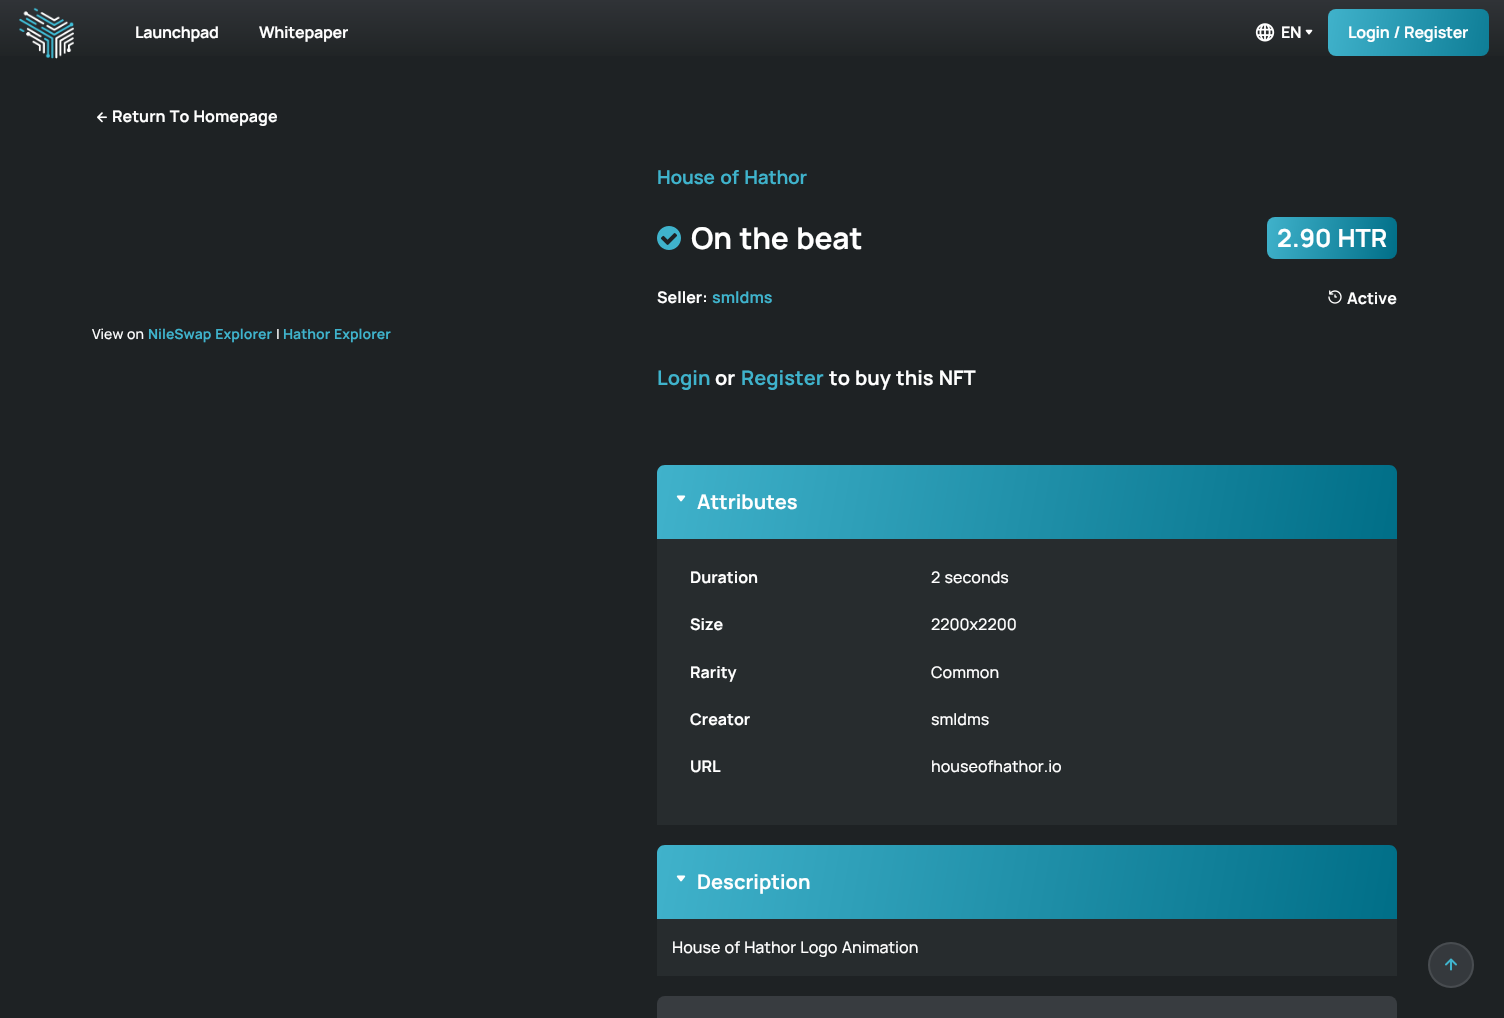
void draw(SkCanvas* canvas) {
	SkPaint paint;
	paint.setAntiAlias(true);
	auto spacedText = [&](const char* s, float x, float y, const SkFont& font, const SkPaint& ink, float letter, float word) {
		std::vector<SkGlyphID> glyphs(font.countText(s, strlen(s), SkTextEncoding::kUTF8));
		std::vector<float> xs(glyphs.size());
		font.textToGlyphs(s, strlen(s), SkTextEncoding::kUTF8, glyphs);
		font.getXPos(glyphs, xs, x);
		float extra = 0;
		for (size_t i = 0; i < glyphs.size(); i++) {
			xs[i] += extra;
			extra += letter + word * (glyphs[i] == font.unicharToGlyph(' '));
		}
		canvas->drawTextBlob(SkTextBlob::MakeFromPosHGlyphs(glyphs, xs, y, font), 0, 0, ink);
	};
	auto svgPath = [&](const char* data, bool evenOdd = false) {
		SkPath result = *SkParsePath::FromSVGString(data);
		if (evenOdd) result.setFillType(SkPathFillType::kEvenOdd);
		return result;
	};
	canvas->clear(0xff1e2224);
	{
		const SkColor colors[] = {0xff303337, 0xff1e2223};
		const float stops[] = {0, 1};
		const SkPoint ends[] = {{752, 0}, {752, 65}};
		paint.setShader(SkGradientShader::MakeLinear(ends, colors, stops, 2, SkTileMode::kClamp));
		paint.setAlpha(255);
	}
	canvas->drawRect(SkRect::MakeXYWH(0, 0, 1504, 56), paint);
	canvas->drawImageRect(SkImages::DeferredFromEncodedData(SkData::MakeFromFileName("img1.png")), SkRect::MakeXYWH(19, 7, 55, 52), SkSamplingOptions());
	SkFont f1(fontMgr->matchFamilyStyle("Manrope", SkFontStyle::Bold()), 16);
	f1.setSubpixel(true);
	paint.setShader(nullptr);
	paint.setColor(0xffffffff);
	spacedText("Launchpad", 135, 38, f1, paint, -0.25, 0);
	spacedText("Whitepaper", 259, 38, f1, paint, -0.25, 0);
	canvas->drawImageRect(SkImages::DeferredFromEncodedData(SkData::MakeFromFileName("img2.png")), SkRect::MakeXYWH(1255, 23, 20, 19), SkSamplingOptions());
	spacedText("EN", 1281, 38, f1, paint, -0.25, 0);
	canvas->drawImageRect(SkImages::DeferredFromEncodedData(SkData::MakeFromFileName("img3.png")), SkRect::MakeXYWH(1305, 29, 8, 6), SkSamplingOptions());
	{
		const SkColor colors[] = {0xff40b2cb, 0xff006e87};
		const float stops[] = {0, 1};
		const SkPoint ends[] = {{1327, 14}, {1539, 51}};
		paint.setShader(SkGradientShader::MakeLinear(ends, colors, stops, 2, SkTileMode::kClamp));
		paint.setAlpha(255);
	}
	canvas->drawRoundRect(SkRect::MakeXYWH(1328, 9, 161, 47), 8, 8, paint);
	paint.setShader(nullptr);
	paint.setColor(0xffffffff);
	spacedText("Login / Register", 1348, 38, f1, paint, -0.25, 1);
	canvas->drawImageRect(SkImages::DeferredFromEncodedData(SkData::MakeFromFileName("img4.png")), SkRect::MakeXYWH(97, 112, 10, 11), SkSamplingOptions());
	spacedText("Return To Homepage", 112, 122, f1, paint, 0, 1);
	SkFont f2(fontMgr->matchFamilyStyle("Manrope", SkFontStyle(500, SkFontStyle::kNormal_Width, SkFontStyle::kUpright_Slant)), 14);
	f2.setSubpixel(true);
	spacedText("View on", 92, 339, f2, paint, 0, 1);
	SkFont f3(fontMgr->matchFamilyStyle("Manrope", SkFontStyle::Bold()), 14);
	f3.setSubpixel(true);
	paint.setColor(0xff3fb3cc);
	spacedText("NileSwap Explorer", 148, 339, f3, paint, 0, 1);
	paint.setColor(0xffffffff);
	canvas->drawString("|", 276, 339, f2, paint);
	paint.setColor(0xff3fb3cc);
	spacedText("Hathor Explorer", 283, 339, f3, paint, 0, 1);
	SkFont f4(fontMgr->matchFamilyStyle("Manrope", SkFontStyle::Bold()), 19);
	f4.setSubpixel(true);
	spacedText("House of Hathor", 657, 184, f4, paint, -0.25, 2);
	canvas->drawImageRect(SkImages::DeferredFromEncodedData(SkData::MakeFromFileName("img5.png")), SkRect::MakeXYWH(657, 226, 24, 24), SkSamplingOptions());
	SkFont f5(fontMgr->matchFamilyStyle("Manrope", SkFontStyle::Bold()), 30);
	f5.setSubpixel(true);
	paint.setColor(0xffffffff);
	spacedText("On the beat", 691, 249, f5, paint, -0.25, 2);
	{
		const SkColor colors[] = {0xff40b2cb, 0xff006e87};
		const float stops[] = {0, 1};
		const SkPoint ends[] = {{1265, 226}, {1399, 250}};
		paint.setShader(SkGradientShader::MakeLinear(ends, colors, stops, 2, SkTileMode::kClamp));
		paint.setAlpha(255);
	}
	canvas->drawRoundRect(SkRect::MakeXYWH(1267, 217, 130, 42), 8, 8, paint);
	SkFont f6(fontMgr->matchFamilyStyle("Manrope", SkFontStyle::Bold()), 25);
	f6.setSubpixel(true);
	paint.setShader(nullptr);
	paint.setColor(0xffffffff);
	spacedText("2.90 HTR", 1277, 247, f6, paint, 0, 1);
	canvas->drawString("Seller:", 657, 303, f1, paint);
	paint.setColor(0xff3fb3cc);
	canvas->drawString("smldms", 712, 303, f1, paint);
	canvas->drawImageRect(SkImages::DeferredFromEncodedData(SkData::MakeFromFileName("img6.png")), SkRect::MakeXYWH(1328, 290, 14, 14), SkSamplingOptions());
	paint.setColor(0xffffffff);
	canvas->drawString("Active", 1347, 304, f1, paint);
	SkFont f7(fontMgr->matchFamilyStyle("Manrope", SkFontStyle::Bold()), 20);
	f7.setSubpixel(true);
	paint.setColor(0xff3fb3cc);
	canvas->drawString("Login", 657, 385, f7, paint);
	paint.setColor(0xffffffff);
	canvas->drawString("or", 715, 385, f7, paint);
	paint.setColor(0xff3fb3cc);
	canvas->drawString("Register", 741, 385, f7, paint);
	paint.setColor(0xffffffff);
	spacedText("to buy this NFT", 829, 385, f7, paint, 0, 1);
	{
		const SkColor colors[] = {0xff40b2cb, 0xff006e87};
		const float stops[] = {0, 1};
		const SkPoint ends[] = {{662, 438}, {1394, 567}};
		paint.setShader(SkGradientShader::MakeLinear(ends, colors, stops, 2, SkTileMode::kClamp));
		paint.setAlpha(255);
	}
	canvas->drawPath(svgPath("M665 465H1389C1393.5 465 1397 468.5 1397 473V539H657V473C657 468.5 660.5 465 665 465Z"), paint);
	canvas->drawImageRect(SkImages::DeferredFromEncodedData(SkData::MakeFromFileName("img7.png")), SkRect::MakeXYWH(676, 495, 10, 7), SkSamplingOptions());
	paint.setShader(nullptr);
	paint.setColor(0xffffffff);
	canvas->drawString("Attributes", 697, 509, f7, paint);
	paint.setColor(0xff272c2e);
	canvas->drawRect(SkRect::MakeXYWH(657, 539, 740, 286), paint);
	paint.setColor(0xffffffff);
	canvas->drawString("Duration", 690, 583, f1, paint);
	SkFont f8(fontMgr->matchFamilyStyle("Manrope", SkFontStyle(500, SkFontStyle::kNormal_Width, SkFontStyle::kUpright_Slant)), 16);
	f8.setSubpixel(true);
	spacedText("2 seconds", 931, 583, f8, paint, 0, 1);
	canvas->drawString("Size", 690, 630, f1, paint);
	canvas->drawString("2200x2200", 931, 630, f8, paint);
	canvas->drawString("Rarity", 690, 678, f1, paint);
	canvas->drawString("Common", 931, 678, f8, paint);
	canvas->drawString("Creator", 690, 725, f1, paint);
	canvas->drawString("smldms", 931, 725, f8, paint);
	canvas->drawString("URL", 690, 772, f1, paint);
	canvas->drawString("houseofhathor.io", 931, 772, f8, paint);
	{
		const SkColor colors[] = {0xff40b2cb, 0xff006e87};
		const float stops[] = {0, 1};
		const SkPoint ends[] = {{662, 818}, {1394, 947}};
		paint.setShader(SkGradientShader::MakeLinear(ends, colors, stops, 2, SkTileMode::kClamp));
		paint.setAlpha(255);
	}
	canvas->drawPath(svgPath("M665 845H1389C1393.5 845 1397 848.5 1397 853V919H657V853C657 848.5 660.5 845 665 845Z"), paint);
	canvas->drawImageRect(SkImages::DeferredFromEncodedData(SkData::MakeFromFileName("img7.png")), SkRect::MakeXYWH(676, 875, 10, 7), SkSamplingOptions());
	paint.setShader(nullptr);
	paint.setColor(0xffffffff);
	canvas->drawString("Description", 697, 889, f7, paint);
	paint.setColor(0xff272c2e);
	canvas->drawRect(SkRect::MakeXYWH(657, 919, 740, 57), paint);
	paint.setColor(0xffffffff);
	spacedText("House of Hathor Logo Animation", 672, 953, f8, paint, 0, 1);
	paint.setColor(0xff383c40);
	canvas->drawRoundRect(SkRect::MakeXYWH(657, 996, 740, 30), 8, 8, paint);
	paint.setColor(0xff35393d);
	canvas->drawCircle(1451, 965, 23, paint);
	paint.setStroke(true);
	paint.setStrokeWidth(2);
	paint.setColor(0x40808286);
	canvas->drawCircle(1451, 965, 22, paint);
	canvas->drawImageRect(SkImages::DeferredFromEncodedData(SkData::MakeFromFileName("img8.png")), SkRect::MakeXYWH(1445, 958, 12, 13), SkSamplingOptions());
}
